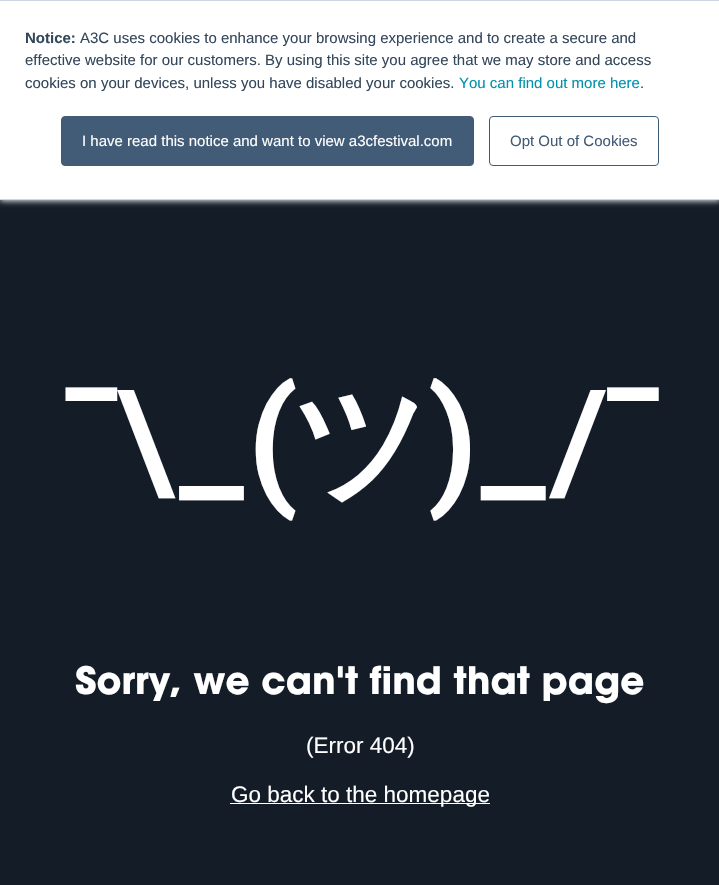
void draw(SkCanvas* canvas) {
	SkPaint paint;
	paint.setAntiAlias(true);
	canvas->clear(0xff141c27);
	paint.setColor(0xffeaf0f6);
	paint.setMaskFilter(SkMaskFilter::MakeBlur(kNormal_SkBlurStyle, 3));
	canvas->drawRect(SkRect::MakeXYWH(0, 1, 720, 200), paint);
	paint.setMaskFilter(nullptr);
	paint.setColor(0xffffffff);
	canvas->drawRect(SkRect::MakeXYWH(0, 1, 719, 198), paint);
	paint.setColor(0xffcbd6e2);
	canvas->drawRect(SkRect::MakeXYWH(0, 0, 719, 1), paint);
	canvas->drawRect(SkRect::MakeXYWH(0, 199, 719, 1), paint);
	SkFont f1(fontMgr->matchFamilyStyle("Liberation Sans", SkFontStyle::Bold()), 15);
	f1.setSubpixel(true);
	paint.setColor(0xff33475b);
	canvas->drawString("Notice:", 25, 43, f1, paint);
	SkFont f2(fontMgr->matchFamilyStyle("Liberation Sans", SkFontStyle::Normal()), 15);
	f2.setSubpixel(true);
	canvas->drawString("A3C uses cookies to enhance your browsing experience and to create a secure and", 80, 43, f2, paint);
	canvas->drawString("effective website for our customers. By using this site you agree that we may store and access", 25, 65, f2, paint);
	canvas->drawString("cookies on your devices, unless you have disabled your cookies.", 25, 88, f2, paint);
	paint.setColor(0xff0091ae);
	canvas->drawString("You can find out more here", 459, 88, f2, paint);
	paint.setColor(0xff33475b);
	canvas->drawString(".", 640, 88, f2, paint);
	paint.setColor(0xff425b76);
	canvas->drawRoundRect(SkRect::MakeXYWH(61.5, 116.5, 412, 49), 3.5, 3.5, paint);
	paint.setStroke(true);
	paint.setStrokeWidth(1);
	canvas->drawRoundRect(SkRect::MakeXYWH(61.5, 116.5, 412, 49), 3.5, 3.5, paint);
	paint.setStroke(false);
	paint.setColor(0xffffffff);
	canvas->drawString("I have read this notice and want to view a3cfestival.com", 82, 146, f2, paint);
	paint.setStroke(true);
	paint.setColor(0xff425b76);
	canvas->drawRoundRect(SkRect::MakeXYWH(489.5, 116.5, 169, 49), 3.5, 3.5, paint);
	paint.setStroke(false);
	canvas->drawString("Opt Out of Cookies", 510, 146, f2, paint);
	SkFont f3(fontMgr->matchFamilyStyle("Roboto Slab", SkFontStyle::Bold()), 135);
	f3.setSubpixel(true);
	paint.setColor(0xffffffff);
	canvas->drawString("¯\\_(", 63, 490, f3, paint);
	SkFont f4(fontMgr->matchFamilyStyle("WenQuanYi Zen Hei", SkFontStyle::Bold()), 135);
	f4.setSubpixel(true);
	canvas->drawString("ツ", 292, 490, f4, paint);
	canvas->drawString(")_/¯", 430, 490, f3, paint);
	SkFont f5(fontMgr->matchFamilyStyle("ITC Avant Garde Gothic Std", SkFontStyle::Bold()), 37.5);
	f5.setSubpixel(true);
	canvas->drawString("Sorry, we can't find that page", 75, 694, f5, paint);
	SkFont f6(fontMgr->matchFamilyStyle("Liberation Sans", SkFontStyle::Normal()), 22.5);
	f6.setSubpixel(true);
	canvas->drawString("(Error 404)", 306, 753, f6, paint);
	canvas->drawRect(SkRect::MakeXYWH(230, 803, 260, 1), paint);
	canvas->drawString("Go back to the homepage", 231, 802, f6, paint);
}
